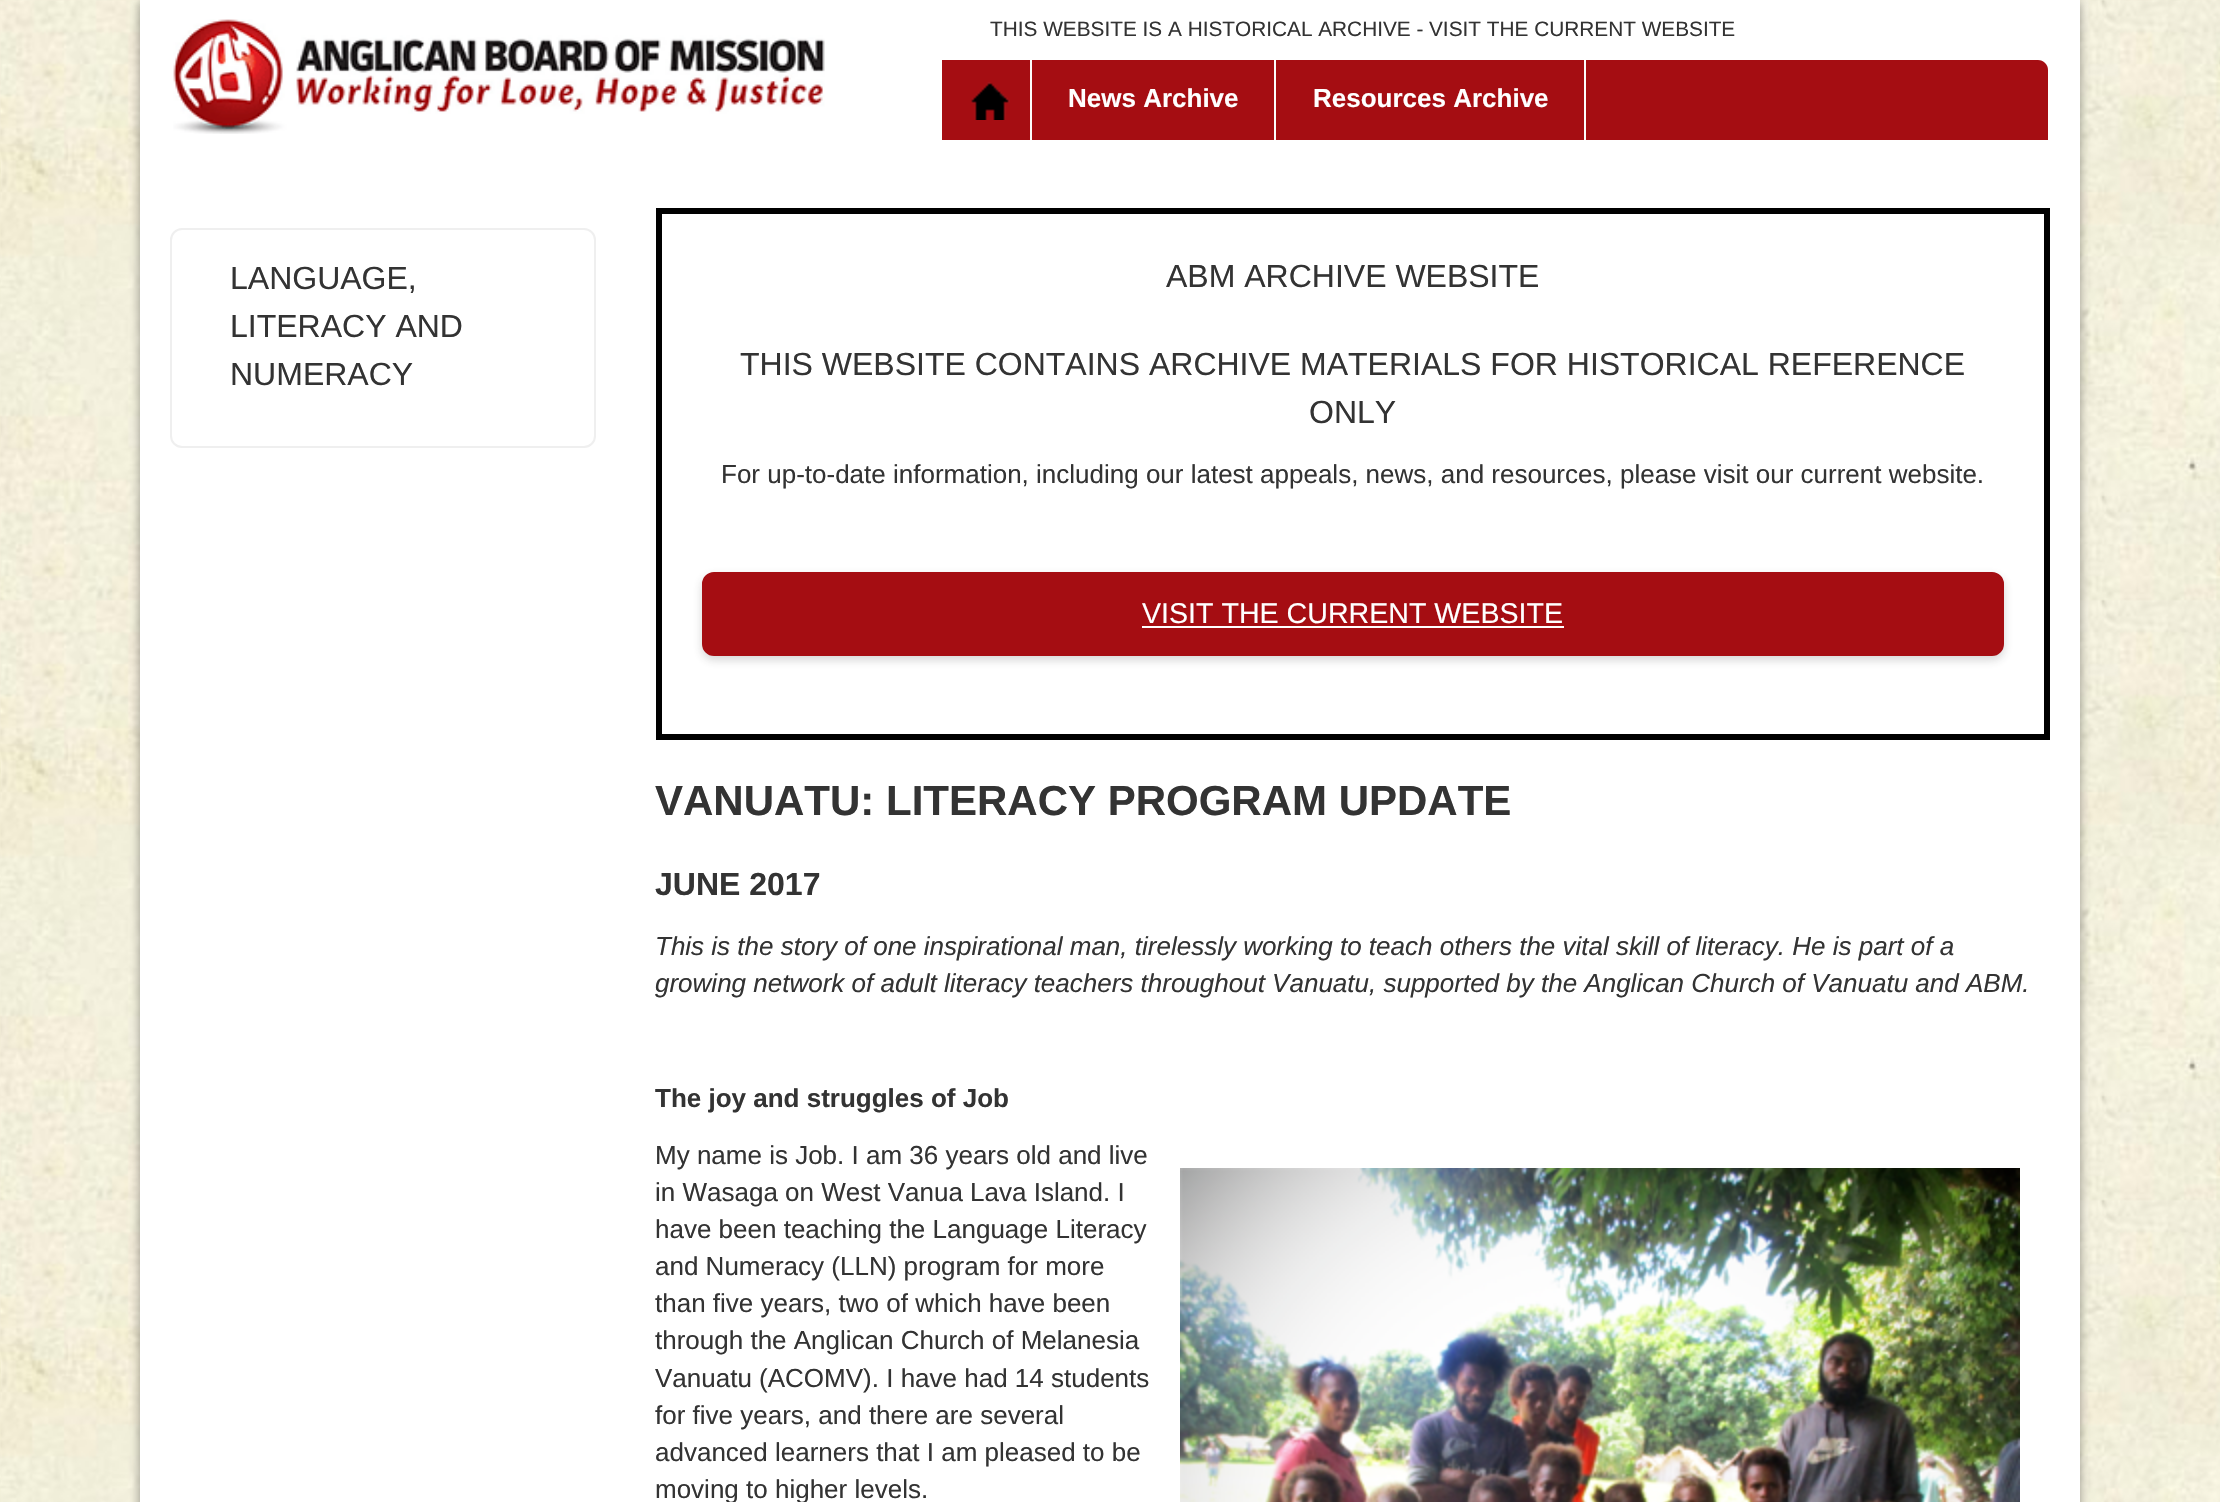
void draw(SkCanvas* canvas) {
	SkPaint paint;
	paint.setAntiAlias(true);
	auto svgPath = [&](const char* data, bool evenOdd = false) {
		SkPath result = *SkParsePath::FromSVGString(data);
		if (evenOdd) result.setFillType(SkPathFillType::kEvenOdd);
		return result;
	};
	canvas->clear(0xffffffff);
	canvas->drawImageRect(SkImages::DeferredFromEncodedData(SkData::MakeFromFileName("img1.png")), SkRect::MakeXYWH(0, 0, 2220, 1502), SkSamplingOptions());
	paint.setColor(0x80323232);
	paint.setMaskFilter(SkMaskFilter::MakeBlur(kNormal_SkBlurStyle, 5));
	canvas->drawRect(SkRect::MakeXYWH(140, 2, 1940, 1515), paint);
	paint.setMaskFilter(nullptr);
	paint.setColor(0xffffffff);
	canvas->drawRect(SkRect::MakeXYWH(140, 0, 1940, 1502), paint);
	SkFont f1(fontMgr->matchFamilyStyle("Liberation Sans", SkFontStyle::Normal()), 20.8);
	f1.setSubpixel(true);
	paint.setColor(0xff333333);
	canvas->drawString("THIS WEBSITE IS A HISTORICAL ARCHIVE -", 990, 36, f1, paint);
	canvas->drawString("VISIT THE CURRENT WEBSITE", 1429, 36, f1, paint);
	paint.setColor(0xffa50d12);
	canvas->drawPath(svgPath("M938 60H2038C2043.5 60 2048 64.5 2048 70V140H938Z"), paint);
	paint.setColor(0xffffffff);
	canvas->drawRect(SkRect::MakeXYWH(938, 60, 4, 80), paint);
	canvas->drawImageRect(SkImages::DeferredFromEncodedData(SkData::MakeFromFileName("img2.png")), SkRect::MakeXYWH(173, 19, 652, 115), SkSamplingOptions());
	canvas->drawImageRect(SkImages::DeferredFromEncodedData(SkData::MakeFromFileName("img3.png")), SkRect::MakeXYWH(971, 82, 39, 38), SkSamplingOptions());
	paint.setColor(0xfffdfcfc);
	canvas->drawRect(SkRect::MakeXYWH(1030, 60, 2, 80), paint);
	canvas->drawRect(SkRect::MakeXYWH(1274, 60, 2, 80), paint);
	SkFont f2(fontMgr->matchFamilyStyle("Liberation Sans", SkFontStyle::Bold()), 26);
	f2.setSubpixel(true);
	paint.setColor(0xffffffff);
	canvas->drawString("News Archive", 1068, 107, f2, paint);
	paint.setColor(0xfffdfcfc);
	canvas->drawRect(SkRect::MakeXYWH(1584, 60, 2, 80), paint);
	paint.setColor(0xffffffff);
	canvas->drawString("Resources Archive", 1313, 107, f2, paint);
	paint.setStroke(true);
	paint.setStrokeWidth(2);
	paint.setColor(0xffefefef);
	canvas->drawRoundRect(SkRect::MakeXYWH(171, 229, 424, 218), 11, 11, paint);
	SkFont f3(fontMgr->matchFamilyStyle("Liberation Sans", SkFontStyle::Normal()), 32);
	f3.setSubpixel(true);
	paint.setStroke(false);
	paint.setColor(0xff333333);
	canvas->drawString("LANGUAGE,", 230, 289, f3, paint);
	canvas->drawString("LITERACY AND", 230, 337, f3, paint);
	canvas->drawString("NUMERACY", 230, 385, f3, paint);
	paint.setStroke(true);
	paint.setStrokeWidth(6);
	paint.setColor(0xff000000);
	canvas->drawRect(SkRect::MakeXYWH(659, 211, 1388, 526), paint);
	paint.setStroke(false);
	paint.setColor(0xff333333);
	canvas->drawString("ABM ARCHIVE WEBSITE", 1166, 287, f3, paint);
	canvas->drawString("THIS WEBSITE CONTAINS ARCHIVE MATERIALS FOR HISTORICAL REFERENCE", 740, 375, f3, paint);
	canvas->drawString("ONLY", 1309, 423, f3, paint);
	SkFont f4(fontMgr->matchFamilyStyle("Liberation Sans", SkFontStyle::Normal()), 26);
	f4.setSubpixel(true);
	canvas->drawString("For up-to-date information, including our latest appeals, news, and resources, please visit our current website.", 721, 483, f4, paint);
	paint.setColor(0x33323232);
	paint.setMaskFilter(SkMaskFilter::MakeBlur(kNormal_SkBlurStyle, 5));
	canvas->drawRoundRect(SkRect::MakeXYWH(702, 576, 1302, 84), 12, 12, paint);
	paint.setMaskFilter(nullptr);
	paint.setColor(0xffa50d12);
	canvas->drawRoundRect(SkRect::MakeXYWH(703, 573, 1300, 82), 11, 11, paint);
	paint.setStroke(true);
	paint.setStrokeWidth(2);
	canvas->drawRoundRect(SkRect::MakeXYWH(703, 573, 1300, 82), 11, 11, paint);
	SkFont f5(fontMgr->matchFamilyStyle("Liberation Sans", SkFontStyle::Normal()), 28.6);
	f5.setSubpixel(true);
	paint.setStroke(false);
	paint.setColor(0xffffffff);
	canvas->drawString("VISIT THE CURRENT WEBSITE", 1142, 623, f5, paint);
	canvas->drawRect(SkRect::MakeXYWH(1142, 626, 422, 2), paint);
	SkFont f6(fontMgr->matchFamilyStyle("Liberation Sans", SkFontStyle::Bold()), 42);
	f6.setSubpixel(true);
	paint.setColor(0xff333333);
	canvas->drawString("VANUATU: LITERACY PROGRAM UPDATE", 655, 815, f6, paint);
	SkFont f7(fontMgr->matchFamilyStyle("Liberation Sans", SkFontStyle::Bold()), 32);
	f7.setSubpixel(true);
	canvas->drawString("JUNE 2017", 655, 895, f7, paint);
	SkFont f8(fontMgr->matchFamilyStyle("Liberation Sans", SkFontStyle::Italic()), 26);
	f8.setSubpixel(true);
	canvas->drawString("This is the story of one inspirational man, tirelessly working to teach others the vital skill of literacy. He is part of a", 655, 955, f8, paint);
	canvas->drawString("growing network of adult literacy teachers throughout Vanuatu, supported by the Anglican Church of Vanuatu and ABM.", 655, 992, f8, paint);
	canvas->drawString("The joy and struggles of Job", 655, 1107, f2, paint);
	canvas->drawString("My name is Job. I am 36 years old and live", 655, 1164, f4, paint);
	canvas->drawString("in Wasaga on West Vanua Lava Island. I", 655, 1201, f4, paint);
	canvas->drawString("have been teaching the Language Literacy", 655, 1238, f4, paint);
	canvas->drawString("and Numeracy (LLN) program for more", 655, 1275, f4, paint);
	canvas->drawString("than five years, two of which have been", 655, 1312, f4, paint);
	canvas->drawString("through the Anglican Church of Melanesia", 655, 1349, f4, paint);
	canvas->drawString("Vanuatu (ACOMV). I have had 14 students", 655, 1387, f4, paint);
	canvas->drawString("for five years, and there are several", 655, 1424, f4, paint);
	canvas->drawString("advanced learners that I am pleased to be", 655, 1461, f4, paint);
	canvas->drawString("moving to higher levels.", 655, 1498, f4, paint);
	canvas->drawImageRect(SkImages::DeferredFromEncodedData(SkData::MakeFromFileName("img4.png")), SkRect::MakeXYWH(1180, 1168, 840, 334), SkSamplingOptions());
}
